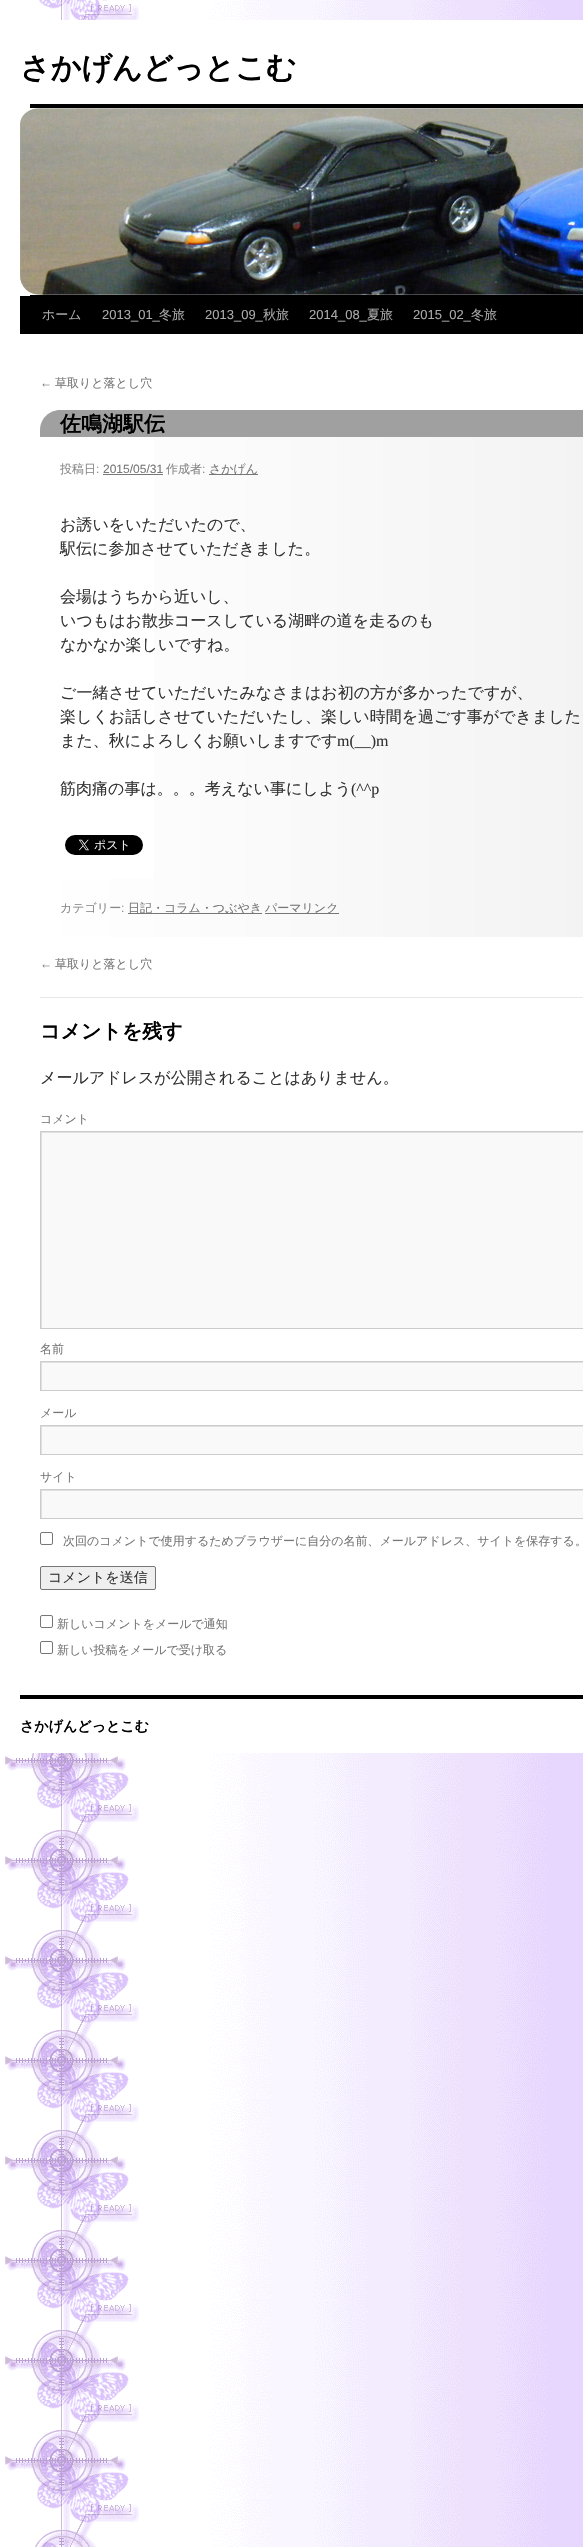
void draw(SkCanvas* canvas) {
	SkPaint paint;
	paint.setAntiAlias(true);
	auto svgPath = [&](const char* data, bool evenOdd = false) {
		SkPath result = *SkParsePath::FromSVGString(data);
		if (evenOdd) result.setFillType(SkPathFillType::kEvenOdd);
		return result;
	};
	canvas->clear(0xffffffff);
	canvas->drawImageRect(SkImages::DeferredFromEncodedData(SkData::MakeFromFileName("img1.png")), SkRect::MakeXYWH(0, 0, 583, 2547), SkSamplingOptions());
	paint.setColor(0xffffffff);
	canvas->drawRect(SkRect::MakeXYWH(5, 20, 578, 1733), paint);
	SkFont f1(fontMgr->matchFamilyStyle("WenQuanYi Zen Hei", SkFontStyle::Bold()), 30);
	f1.setSubpixel(true);
	paint.setColor(0xff000000);
	canvas->drawString("さかげんどっとこむ", 20, 78, f1, paint);
	canvas->drawRect(SkRect::MakeXYWH(30, 104, 553, 4), paint);
	canvas->drawRect(SkRect::MakeXYWH(30, 295, 553, 1), paint);
	canvas->drawImageRect(SkImages::DeferredFromEncodedData(SkData::MakeFromFileName("img2.png")), SkRect::MakeXYWH(20, 108, 563, 187), SkSamplingOptions());
	canvas->drawRect(SkRect::MakeXYWH(20, 296, 563, 38), paint);
	SkFont f2(fontMgr->matchFamilyStyle("WenQuanYi Zen Hei", SkFontStyle(500, SkFontStyle::kNormal_Width, SkFontStyle::kUpright_Slant)), 13);
	f2.setSubpixel(true);
	paint.setColor(0xffaaaaaa);
	canvas->drawString("ホーム", 42, 319, f2, paint);
	SkFont f3(fontMgr->matchFamilyStyle("Liberation Sans", SkFontStyle::Normal()), 13);
	f3.setSubpixel(true);
	canvas->drawString("2013_01_", 102, 319, f3, paint);
	canvas->drawString("冬旅", 159, 319, f2, paint);
	canvas->drawString("2013_09_", 205, 319, f3, paint);
	canvas->drawString("秋旅", 263, 319, f2, paint);
	canvas->drawString("2014_08_", 309, 319, f3, paint);
	canvas->drawString("夏旅", 367, 319, f2, paint);
	canvas->drawString("2015_02_", 413, 319, f3, paint);
	canvas->drawString("冬旅", 471, 319, f2, paint);
	SkFont f4(fontMgr->matchFamilyStyle("Liberation Sans", SkFontStyle::Normal()), 12);
	f4.setSubpixel(true);
	paint.setColor(0xff777777);
	canvas->drawString("←", 40, 387, f4, paint);
	SkFont f5(fontMgr->matchFamilyStyle("WenQuanYi Zen Hei", SkFontStyle(500, SkFontStyle::kNormal_Width, SkFontStyle::kUpright_Slant)), 12);
	f5.setSubpixel(true);
	canvas->drawString("草取りと落とし穴", 55, 387, f5, paint);
	paint.setColor(0xffa0a0a0);
	canvas->drawPath(svgPath("M60 410H583C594 410 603 419 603 430V437H40V430C40 419 49 410 60 410Z"), paint);
	SkFont f6(fontMgr->matchFamilyStyle("WenQuanYi Zen Hei", SkFontStyle::Bold()), 21);
	f6.setSubpixel(true);
	paint.setColor(0xff000000);
	canvas->drawString("佐鳴湖駅伝", 60, 431, f6, paint);
	{
		const SkColor colors[] = {0xffffffff, 0xfff1f1f1};
		const float stops[] = {0, 1};
		const SkPoint ends[] = {{40, 469}, {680, 469}};
		paint.setShader(SkGradientShader::MakeLinear(ends, colors, stops, 2, SkTileMode::kClamp));
		paint.setAlpha(255);
	}
	canvas->drawRect(SkRect::MakeXYWH(154, 437, 429, 64), paint);
	paint.setShader(nullptr);
	paint.setColor(0xff888888);
	canvas->drawString("投稿日", 60, 473, f5, paint);
	canvas->drawString(":", 96, 473, f4, paint);
	paint.setColor(0xff777777);
	canvas->drawString("2015/05/31", 103, 473, f4, paint);
	canvas->drawRect(SkRect::MakeXYWH(103, 474, 60, 1), paint);
	paint.setColor(0xff888888);
	canvas->drawString("作成者", 166, 473, f5, paint);
	canvas->drawString(":", 202, 473, f4, paint);
	paint.setColor(0xff777777);
	canvas->drawRect(SkRect::MakeXYWH(209, 474, 49, 1), paint);
	canvas->drawString("さかげん", 209, 473, f5, paint);
	{
		const SkColor colors[] = {0xffffffff, 0xfff1f1f1};
		const float stops[] = {0, 1};
		const SkPoint ends[] = {{40, 690}, {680, 690}};
		paint.setShader(SkGradientShader::MakeLinear(ends, colors, stops, 2, SkTileMode::kClamp));
		paint.setAlpha(255);
	}
	canvas->drawRect(SkRect::MakeXYWH(154, 501, 429, 378), paint);
	SkFont f7(fontMgr->matchFamilyStyle("WenQuanYi Zen Hei", SkFontStyle(500, SkFontStyle::kNormal_Width, SkFontStyle::kUpright_Slant)), 16);
	f7.setSubpixel(true);
	paint.setShader(nullptr);
	paint.setColor(0xff333333);
	canvas->drawString("お誘いをいただいたので、", 60, 530, f7, paint);
	canvas->drawString("駅伝に参加させていただきました。", 60, 554, f7, paint);
	canvas->drawString("会場はうちから近いし、", 60, 602, f7, paint);
	canvas->drawString("いつもはお散歩コースしている湖畔の道を走るのも", 60, 626, f7, paint);
	canvas->drawString("なかなか楽しいですね。", 60, 650, f7, paint);
	canvas->drawString("ご一緒させていただいたみなさまはお初の方が多かったですが、", 60, 698, f7, paint);
	canvas->drawString("楽しくお話しさせていただいたし、楽しい時間を過ごす事ができました", 60, 722, f7, paint);
	canvas->drawString("また、秋によろしくお願いしますです", 60, 746, f7, paint);
	SkFont f8(fontMgr->matchFamilyStyle("Liberation Serif", SkFontStyle::Normal()), 16);
	f8.setSubpixel(true);
	canvas->drawString("m(__)m", 337, 746, f8, paint);
	canvas->drawString("筋肉痛の事は。。。考えない事にしよう", 60, 794, f7, paint);
	canvas->drawString("(^^p", 351, 794, f8, paint);
	canvas->drawImageRect(SkImages::DeferredFromEncodedData(SkData::MakeFromFileName("img3.png")), SkRect::MakeXYWH(65, 835, 78, 20), SkSamplingOptions());
	{
		const SkColor colors[] = {0xffffffff, 0xfff1f1f1};
		const float stops[] = {0, 1};
		const SkPoint ends[] = {{40, 908}, {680, 908}};
		paint.setShader(SkGradientShader::MakeLinear(ends, colors, stops, 2, SkTileMode::kClamp));
		paint.setAlpha(255);
	}
	canvas->drawPath(svgPath("M40 879H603V917C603 928 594 937 583 937H60C49 937 40 928 40 917Z"), paint);
	paint.setShader(nullptr);
	paint.setColor(0xff888888);
	canvas->drawString("カテゴリー", 60, 912, f5, paint);
	canvas->drawString(":", 121, 912, f4, paint);
	paint.setColor(0xff777777);
	canvas->drawRect(SkRect::MakeXYWH(128, 913, 134, 1), paint);
	canvas->drawString("日記・コラム・つぶやき", 128, 912, f5, paint);
	canvas->drawRect(SkRect::MakeXYWH(265, 913, 74, 1), paint);
	canvas->drawString("パーマリンク", 265, 912, f5, paint);
	canvas->drawString("←", 40, 968, f4, paint);
	canvas->drawString("草取りと落とし穴", 55, 968, f5, paint);
	paint.setColor(0xffe7e7e7);
	canvas->drawRect(SkRect::MakeXYWH(40, 997, 543, 1), paint);
	SkFont f9(fontMgr->matchFamilyStyle("WenQuanYi Zen Hei", SkFontStyle::Bold()), 20);
	f9.setSubpixel(true);
	paint.setColor(0xff000000);
	canvas->drawString("コメントを残す", 40, 1038, f9, paint);
	paint.setColor(0xff333333);
	canvas->drawString("メールアドレスが公開されることはありません。", 40, 1083, f7, paint);
	paint.setColor(0xff777777);
	canvas->drawString("コメント", 40, 1123, f5, paint);
	paint.setColor(0xfff9f9f9);
	canvas->drawRect(SkRect::MakeXYWH(42, 1133, 541, 195), paint);
	canvas->save();
	canvas->clipRect(SkRect::MakeXYWH(41, 1132, 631, 196));
	paint.setColor(0xffe0e0e0);
	canvas->drawPath(svgPath("M-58 1033H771V1427H-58ZM42 1133H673V1329H42Z", true), paint);
	canvas->restore();
	paint.setStroke(true);
	paint.setStrokeWidth(1);
	paint.setColor(0xffcccccc);
	canvas->drawRect(SkRect::MakeXYWH(40.5, 1131.5, 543, 197), paint);
	paint.setStroke(false);
	paint.setColor(0xff777777);
	canvas->drawString("名前", 40, 1353, f5, paint);
	paint.setColor(0xfff9f9f9);
	canvas->drawRect(SkRect::MakeXYWH(42, 1363, 541, 27), paint);
	canvas->save();
	canvas->clipRect(SkRect::MakeXYWH(41, 1362, 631, 28));
	paint.setColor(0xffe0e0e0);
	canvas->drawPath(svgPath("M-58 1263H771V1489H-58ZM42 1363H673V1391H42Z", true), paint);
	canvas->restore();
	paint.setStroke(true);
	paint.setColor(0xffcccccc);
	canvas->drawRect(SkRect::MakeXYWH(40.5, 1361.5, 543, 29), paint);
	paint.setStroke(false);
	paint.setColor(0xff777777);
	canvas->drawString("メール", 40, 1417, f5, paint);
	paint.setColor(0xfff9f9f9);
	canvas->drawRect(SkRect::MakeXYWH(42, 1427, 541, 27), paint);
	canvas->save();
	canvas->clipRect(SkRect::MakeXYWH(41, 1426, 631, 28));
	paint.setColor(0xffe0e0e0);
	canvas->drawPath(svgPath("M-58 1327H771V1553H-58ZM42 1427H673V1455H42Z", true), paint);
	canvas->restore();
	paint.setStroke(true);
	paint.setColor(0xffcccccc);
	canvas->drawRect(SkRect::MakeXYWH(40.5, 1425.5, 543, 29), paint);
	paint.setStroke(false);
	paint.setColor(0xff777777);
	canvas->drawString("サイト", 40, 1481, f5, paint);
	paint.setColor(0xfff9f9f9);
	canvas->drawRect(SkRect::MakeXYWH(42, 1491, 541, 27), paint);
	canvas->save();
	canvas->clipRect(SkRect::MakeXYWH(41, 1490, 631, 28));
	paint.setColor(0xffe0e0e0);
	canvas->drawPath(svgPath("M-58 1391H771V1617H-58ZM42 1491H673V1519H42Z", true), paint);
	canvas->restore();
	paint.setStroke(true);
	paint.setColor(0xffcccccc);
	canvas->drawRect(SkRect::MakeXYWH(40.5, 1489.5, 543, 29), paint);
	paint.setColor(0xff767676);
	canvas->drawRoundRect(SkRect::MakeXYWH(40.5, 1532.5, 12, 12), 1.5, 1.5, paint);
	paint.setStroke(false);
	paint.setColor(0xff777777);
	canvas->drawString("次回のコメントで使用するためブラウザーに自分の名前、メールアドレス、サイトを保存する。", 63, 1545, f5, paint);
	paint.setColor(0xffefefef);
	canvas->drawRoundRect(SkRect::MakeXYWH(40.5, 1566.5, 115, 23), 1.5, 1.5, paint);
	paint.setStroke(true);
	paint.setColor(0xff767676);
	canvas->drawRoundRect(SkRect::MakeXYWH(40.5, 1566.5, 115, 23), 1.5, 1.5, paint);
	SkFont f10(fontMgr->matchFamilyStyle("WenQuanYi Zen Hei", SkFontStyle(500, SkFontStyle::kNormal_Width, SkFontStyle::kUpright_Slant)), 14);
	f10.setSubpixel(true);
	paint.setStroke(false);
	paint.setColor(0xff333333);
	canvas->drawString("コメントを送信", 48, 1582, f10, paint);
	paint.setStroke(true);
	paint.setColor(0xff767676);
	canvas->drawRoundRect(SkRect::MakeXYWH(40.5, 1615.5, 12, 12), 1.5, 1.5, paint);
	paint.setStroke(false);
	paint.setColor(0xff777777);
	canvas->drawString("新しいコメントをメールで通知", 57, 1628, f5, paint);
	paint.setStroke(true);
	paint.setColor(0xff767676);
	canvas->drawRoundRect(SkRect::MakeXYWH(40.5, 1641.5, 12, 12), 1.5, 1.5, paint);
	paint.setStroke(false);
	paint.setColor(0xff777777);
	canvas->drawString("新しい投稿をメールで受け取る", 57, 1654, f5, paint);
	paint.setColor(0xff000000);
	canvas->drawRect(SkRect::MakeXYWH(20, 1695, 563, 4), paint);
	SkFont f11(fontMgr->matchFamilyStyle("WenQuanYi Zen Hei", SkFontStyle::Bold()), 14);
	f11.setSubpixel(true);
	canvas->drawString("さかげんどっとこむ", 20, 1731, f11, paint);
}
